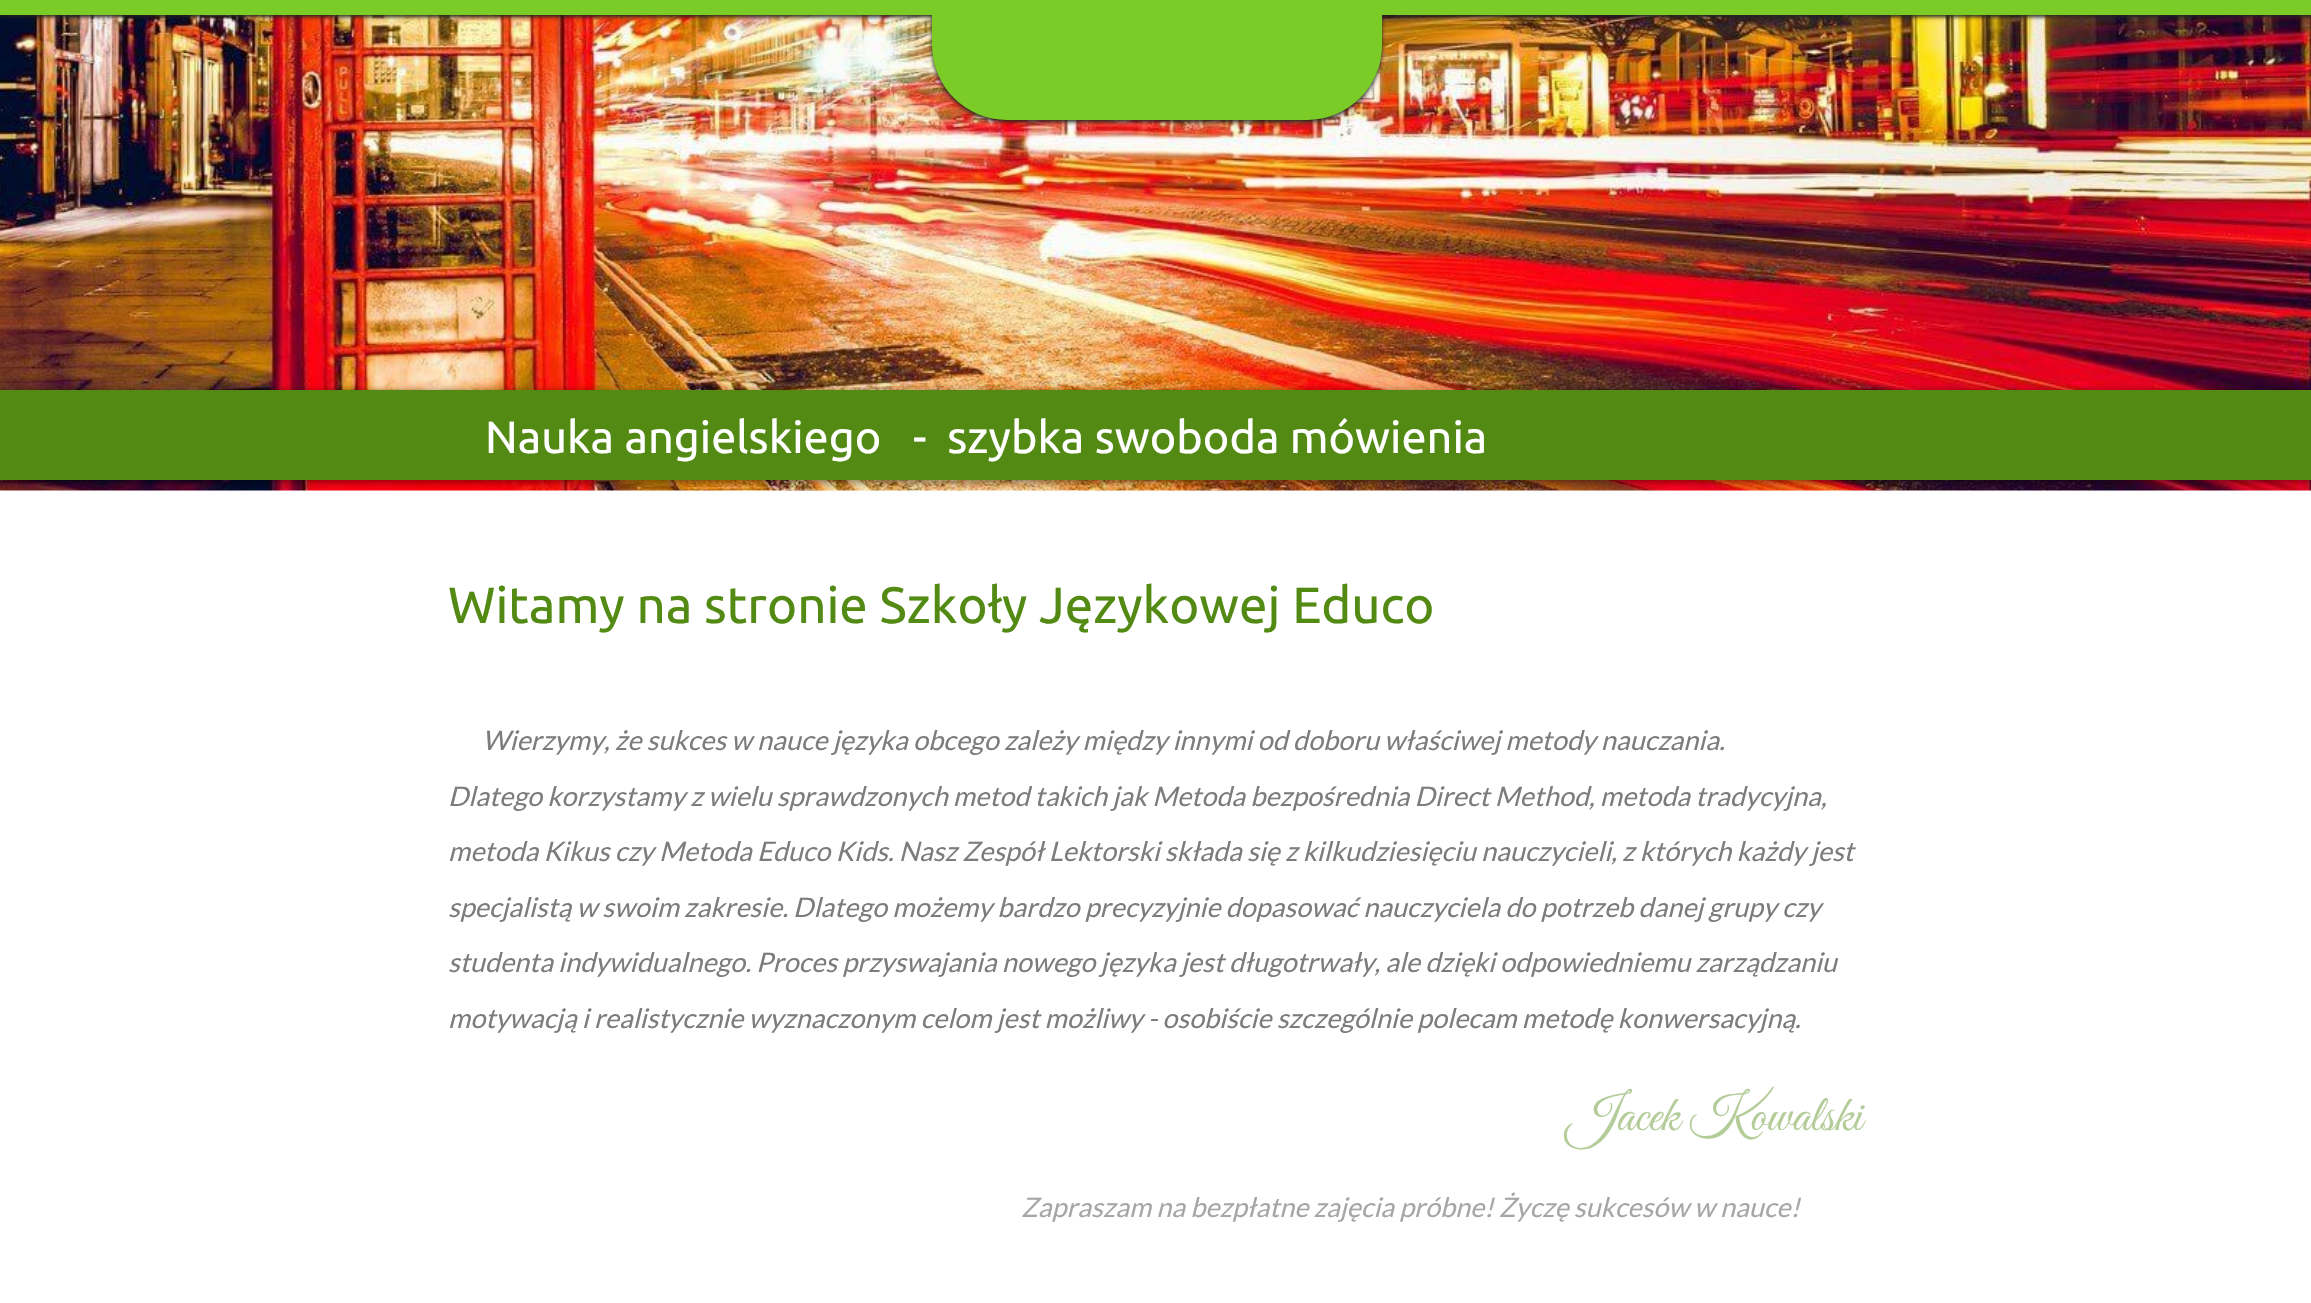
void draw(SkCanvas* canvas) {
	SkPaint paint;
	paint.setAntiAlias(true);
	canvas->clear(0xffffffff);
	canvas->drawImageRect(SkImages::DeferredFromEncodedData(SkData::MakeFromFileName("img1.png")), SkRect::MakeXYWH(0, 15, 2311, 476), SkSamplingOptions());
	paint.setColor(0xff222222);
	paint.setMaskFilter(SkMaskFilter::MakeBlur(kNormal_SkBlurStyle, 2));
	canvas->drawRoundRect(SkRect::MakeXYWH(932, -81, 450, 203), 75, 75, paint);
	paint.setMaskFilter(nullptr);
	paint.setMaskFilter(SkMaskFilter::MakeBlur(kNormal_SkBlurStyle, 2));
	canvas->drawRect(SkRect::MakeXYWH(0, 2, 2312, 15), paint);
	paint.setMaskFilter(nullptr);
	paint.setColor(0xff7ccc27);
	canvas->drawRoundRect(SkRect::MakeXYWH(932, -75, 450, 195), 75, 75, paint);
	canvas->drawRect(SkRect::MakeXYWH(0, 0, 932, 15), paint);
	canvas->drawRect(SkRect::MakeXYWH(1382, 0, 929, 15), paint);
	paint.setColor(0x80000000);
	paint.setMaskFilter(SkMaskFilter::MakeBlur(kNormal_SkBlurStyle, 4));
	canvas->drawRect(SkRect::MakeXYWH(0, 392, 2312, 90), paint);
	paint.setMaskFilter(nullptr);
	paint.setColor(0xff528a13);
	canvas->drawRect(SkRect::MakeXYWH(0, 390, 2311, 90), paint);
	SkFont f1(fontMgr->matchFamilyStyle("Ubuntu", SkFontStyle::Normal()), 45);
	f1.setSubpixel(true);
	paint.setColor(0xffffffff);
	canvas->drawString("Nauka angielskiego", 485, 453, f1, paint);
	canvas->save();
	canvas->clipRect(SkRect::MakeXYWH(914, 390, 888, 90));
	canvas->drawString("-  szybka swoboda mówienia", 913, 453, f1, paint);
	canvas->restore();
	SkFont f2(fontMgr->matchFamilyStyle("Ubuntu", SkFontStyle::Normal()), 51);
	f2.setSubpixel(true);
	paint.setColor(0xff528a13);
	canvas->drawString("Witamy na stronie Szkoły Językowej Educo", 448, 623, f2, paint);
	SkFont f3(fontMgr->matchFamilyStyle("Lato", SkFontStyle::Italic()), 27);
	f3.setSubpixel(true);
	paint.setColor(0xff7c7c7c);
	canvas->drawString("Wierzymy, że sukces w nauce języka obcego zależy między innymi od doboru właściwej metody nauczania.", 482, 750, f3, paint);
	canvas->drawString("Dlatego korzystamy z wielu sprawdzonych metod takich jak Metoda bezpośrednia Direct Method, metoda tradycyjna,", 448, 806, f3, paint);
	canvas->drawString("metoda Kikus czy Metoda Educo Kids. Nasz Zespół Lektorski składa się z kilkudziesięciu nauczycieli, z których każdy jest", 448, 861, f3, paint);
	canvas->drawString("specjalistą w swoim zakresie. Dlatego możemy bardzo precyzyjnie dopasować nauczyciela do potrzeb danej grupy czy", 448, 917, f3, paint);
	canvas->drawString("studenta indywidualnego. Proces przyswajania nowego języka jest długotrwały, ale dzięki odpowiedniemu zarządzaniu", 448, 972, f3, paint);
	canvas->drawString("motywacją i realistycznie wyznaczonym celom jest możliwy - osobiście szczególnie polecam metodę konwersacyjną.", 448, 1028, f3, paint);
	SkFont f4(fontMgr->matchFamilyStyle("Great Vibes", SkFontStyle::Normal()), 51);
	f4.setSubpixel(true);
	paint.setColor(0xffb3cc98);
	canvas->drawString("Jacek Kowalski", 1567, 1130, f4, paint);
	paint.setColor(0xffa6a6a6);
	canvas->drawString("Zapraszam na bezpłatne zajęcia próbne! Życzę sukcesów w nauce!", 1021, 1217, f3, paint);
}
